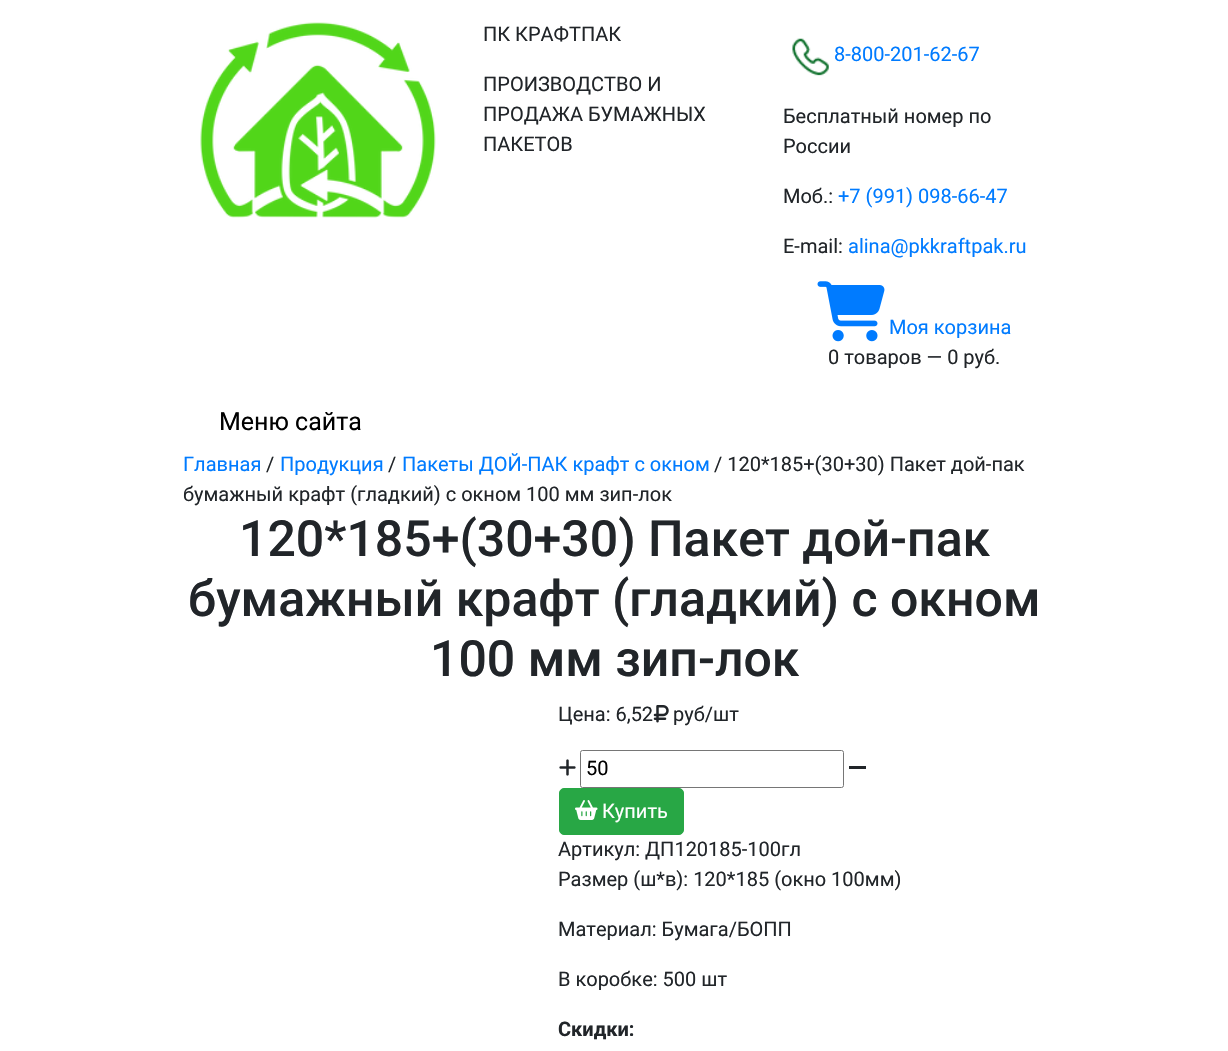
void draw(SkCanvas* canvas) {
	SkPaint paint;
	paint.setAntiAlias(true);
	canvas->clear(0xffffffff);
	canvas->drawImageRect(SkImages::DeferredFromEncodedData(SkData::MakeFromFileName("img1.png")), SkRect::MakeXYWH(200, 22, 236, 196), SkSamplingOptions());
	SkFont f1(fontMgr->matchFamilyStyle("Roboto", SkFontStyle::Normal()), 20);
	f1.setSubpixel(true);
	paint.setColor(0xff212529);
	canvas->drawString("ПК КРАФТПАК", 483, 41, f1, paint);
	canvas->drawString("ПРОИЗВОДСТВО И", 483, 91, f1, paint);
	canvas->drawString("ПРОДАЖА БУМАЖНЫХ", 483, 121, f1, paint);
	canvas->drawString("ПАКЕТОВ", 483, 151, f1, paint);
	canvas->drawImageRect(SkImages::DeferredFromEncodedData(SkData::MakeFromFileName("img2.png")), SkRect::MakeXYWH(792, 38, 37, 38), SkSamplingOptions());
	paint.setColor(0xff007bff);
	canvas->drawString("8-800-201-62-67", 834, 61, f1, paint);
	paint.setColor(0xff212529);
	canvas->drawString("Бесплатный номер по", 783, 123, f1, paint);
	canvas->drawString("России", 783, 153, f1, paint);
	canvas->drawString("Моб.:", 783, 203, f1, paint);
	paint.setColor(0xff007bff);
	canvas->drawString("+7 (991) 098-66-47", 838, 203, f1, paint);
	paint.setColor(0xff212529);
	canvas->drawString("E-mail:", 783, 253, f1, paint);
	paint.setColor(0xff007bff);
	canvas->drawString("alina@pkkraftpak.ru", 848, 253, f1, paint);
	canvas->drawImageRect(SkImages::DeferredFromEncodedData(SkData::MakeFromFileName("img3.png")), SkRect::MakeXYWH(817, 281, 68, 61), SkSamplingOptions());
	canvas->drawString("Моя корзина", 889, 334, f1, paint);
	paint.setColor(0xff212529);
	canvas->drawString("0 товаров — 0 руб.", 828, 364, f1, paint);
	SkFont f2(fontMgr->matchFamilyStyle("Roboto", SkFontStyle::Normal()), 25);
	f2.setSubpixel(true);
	paint.setColor(0xff000000);
	canvas->drawString("Меню сайта", 219, 430, f2, paint);
	paint.setColor(0xff007bff);
	canvas->drawString("Главная", 183, 471, f1, paint);
	paint.setColor(0xff212529);
	canvas->drawString("/", 266, 471, f1, paint);
	paint.setColor(0xff007bff);
	canvas->drawString("Продукция", 280, 471, f1, paint);
	paint.setColor(0xff212529);
	canvas->drawString("/", 388, 471, f1, paint);
	paint.setColor(0xff007bff);
	canvas->drawString("Пакеты ДОЙ-ПАК крафт с окном", 402, 471, f1, paint);
	paint.setColor(0xff212529);
	canvas->drawString("/ 120*185+(30+30) Пакет дой-пак", 714, 471, f1, paint);
	canvas->drawString("бумажный крафт (гладкий) с окном 100 мм зип-лок", 183, 501, f1, paint);
	SkFont f3(fontMgr->matchFamilyStyle("Roboto", SkFontStyle(500, SkFontStyle::kNormal_Width, SkFontStyle::kUpright_Slant)), 50);
	f3.setSubpixel(true);
	canvas->drawString("120*185+(30+30) Пакет дой-пак", 239, 556, f3, paint);
	canvas->drawString("бумажный крафт (гладкий) с окном", 188, 616, f3, paint);
	canvas->drawString("100 мм зип-лок", 430, 676, f3, paint);
	canvas->drawString("Цена: 6,52", 558, 721, f1, paint);
	canvas->drawImageRect(SkImages::DeferredFromEncodedData(SkData::MakeFromFileName("img4.png")), SkRect::MakeXYWH(653, 705, 16, 18), SkSamplingOptions());
	canvas->drawString("руб/шт", 673, 721, f1, paint);
	canvas->drawImageRect(SkImages::DeferredFromEncodedData(SkData::MakeFromFileName("img5.png")), SkRect::MakeXYWH(559, 759, 17, 17), SkSamplingOptions());
	paint.setStroke(true);
	paint.setStrokeWidth(1);
	paint.setColor(0xff767676);
	canvas->drawRoundRect(SkRect::MakeXYWH(580.5, 750.5, 263, 37), 2, 2, paint);
	paint.setStroke(false);
	paint.setColor(0xff000000);
	canvas->drawString("50", 586, 775, f1, paint);
	paint.setColor(0xff212529);
	canvas->drawRect(SkRect::MakeXYWH(849, 766, 17, 3), paint);
	paint.setColor(0xff28a745);
	canvas->drawRoundRect(SkRect::MakeXYWH(559.5, 788.5, 124, 46), 4.5, 4.5, paint);
	paint.setStroke(true);
	canvas->drawRoundRect(SkRect::MakeXYWH(559.5, 788.5, 124, 46), 4.5, 4.5, paint);
	canvas->drawImageRect(SkImages::DeferredFromEncodedData(SkData::MakeFromFileName("img6.png")), SkRect::MakeXYWH(575, 800, 23, 20), SkSamplingOptions());
	paint.setStroke(false);
	paint.setColor(0xffffffff);
	canvas->drawString("Купить", 602, 818, f1, paint);
	paint.setColor(0xff212529);
	canvas->drawString("Артикул: ДП120185-100гл", 558, 856, f1, paint);
	canvas->drawString("Размер (ш*в): 120*185 (окно 100мм)", 558, 886, f1, paint);
	canvas->drawString("Материал: Бумага/БОПП", 558, 936, f1, paint);
	canvas->drawString("В коробке: 500 шт", 558, 986, f1, paint);
	SkFont f4(fontMgr->matchFamilyStyle("Roboto", SkFontStyle::Bold()), 20);
	f4.setSubpixel(true);
	canvas->drawString("Скидки:", 558, 1036, f4, paint);
}
